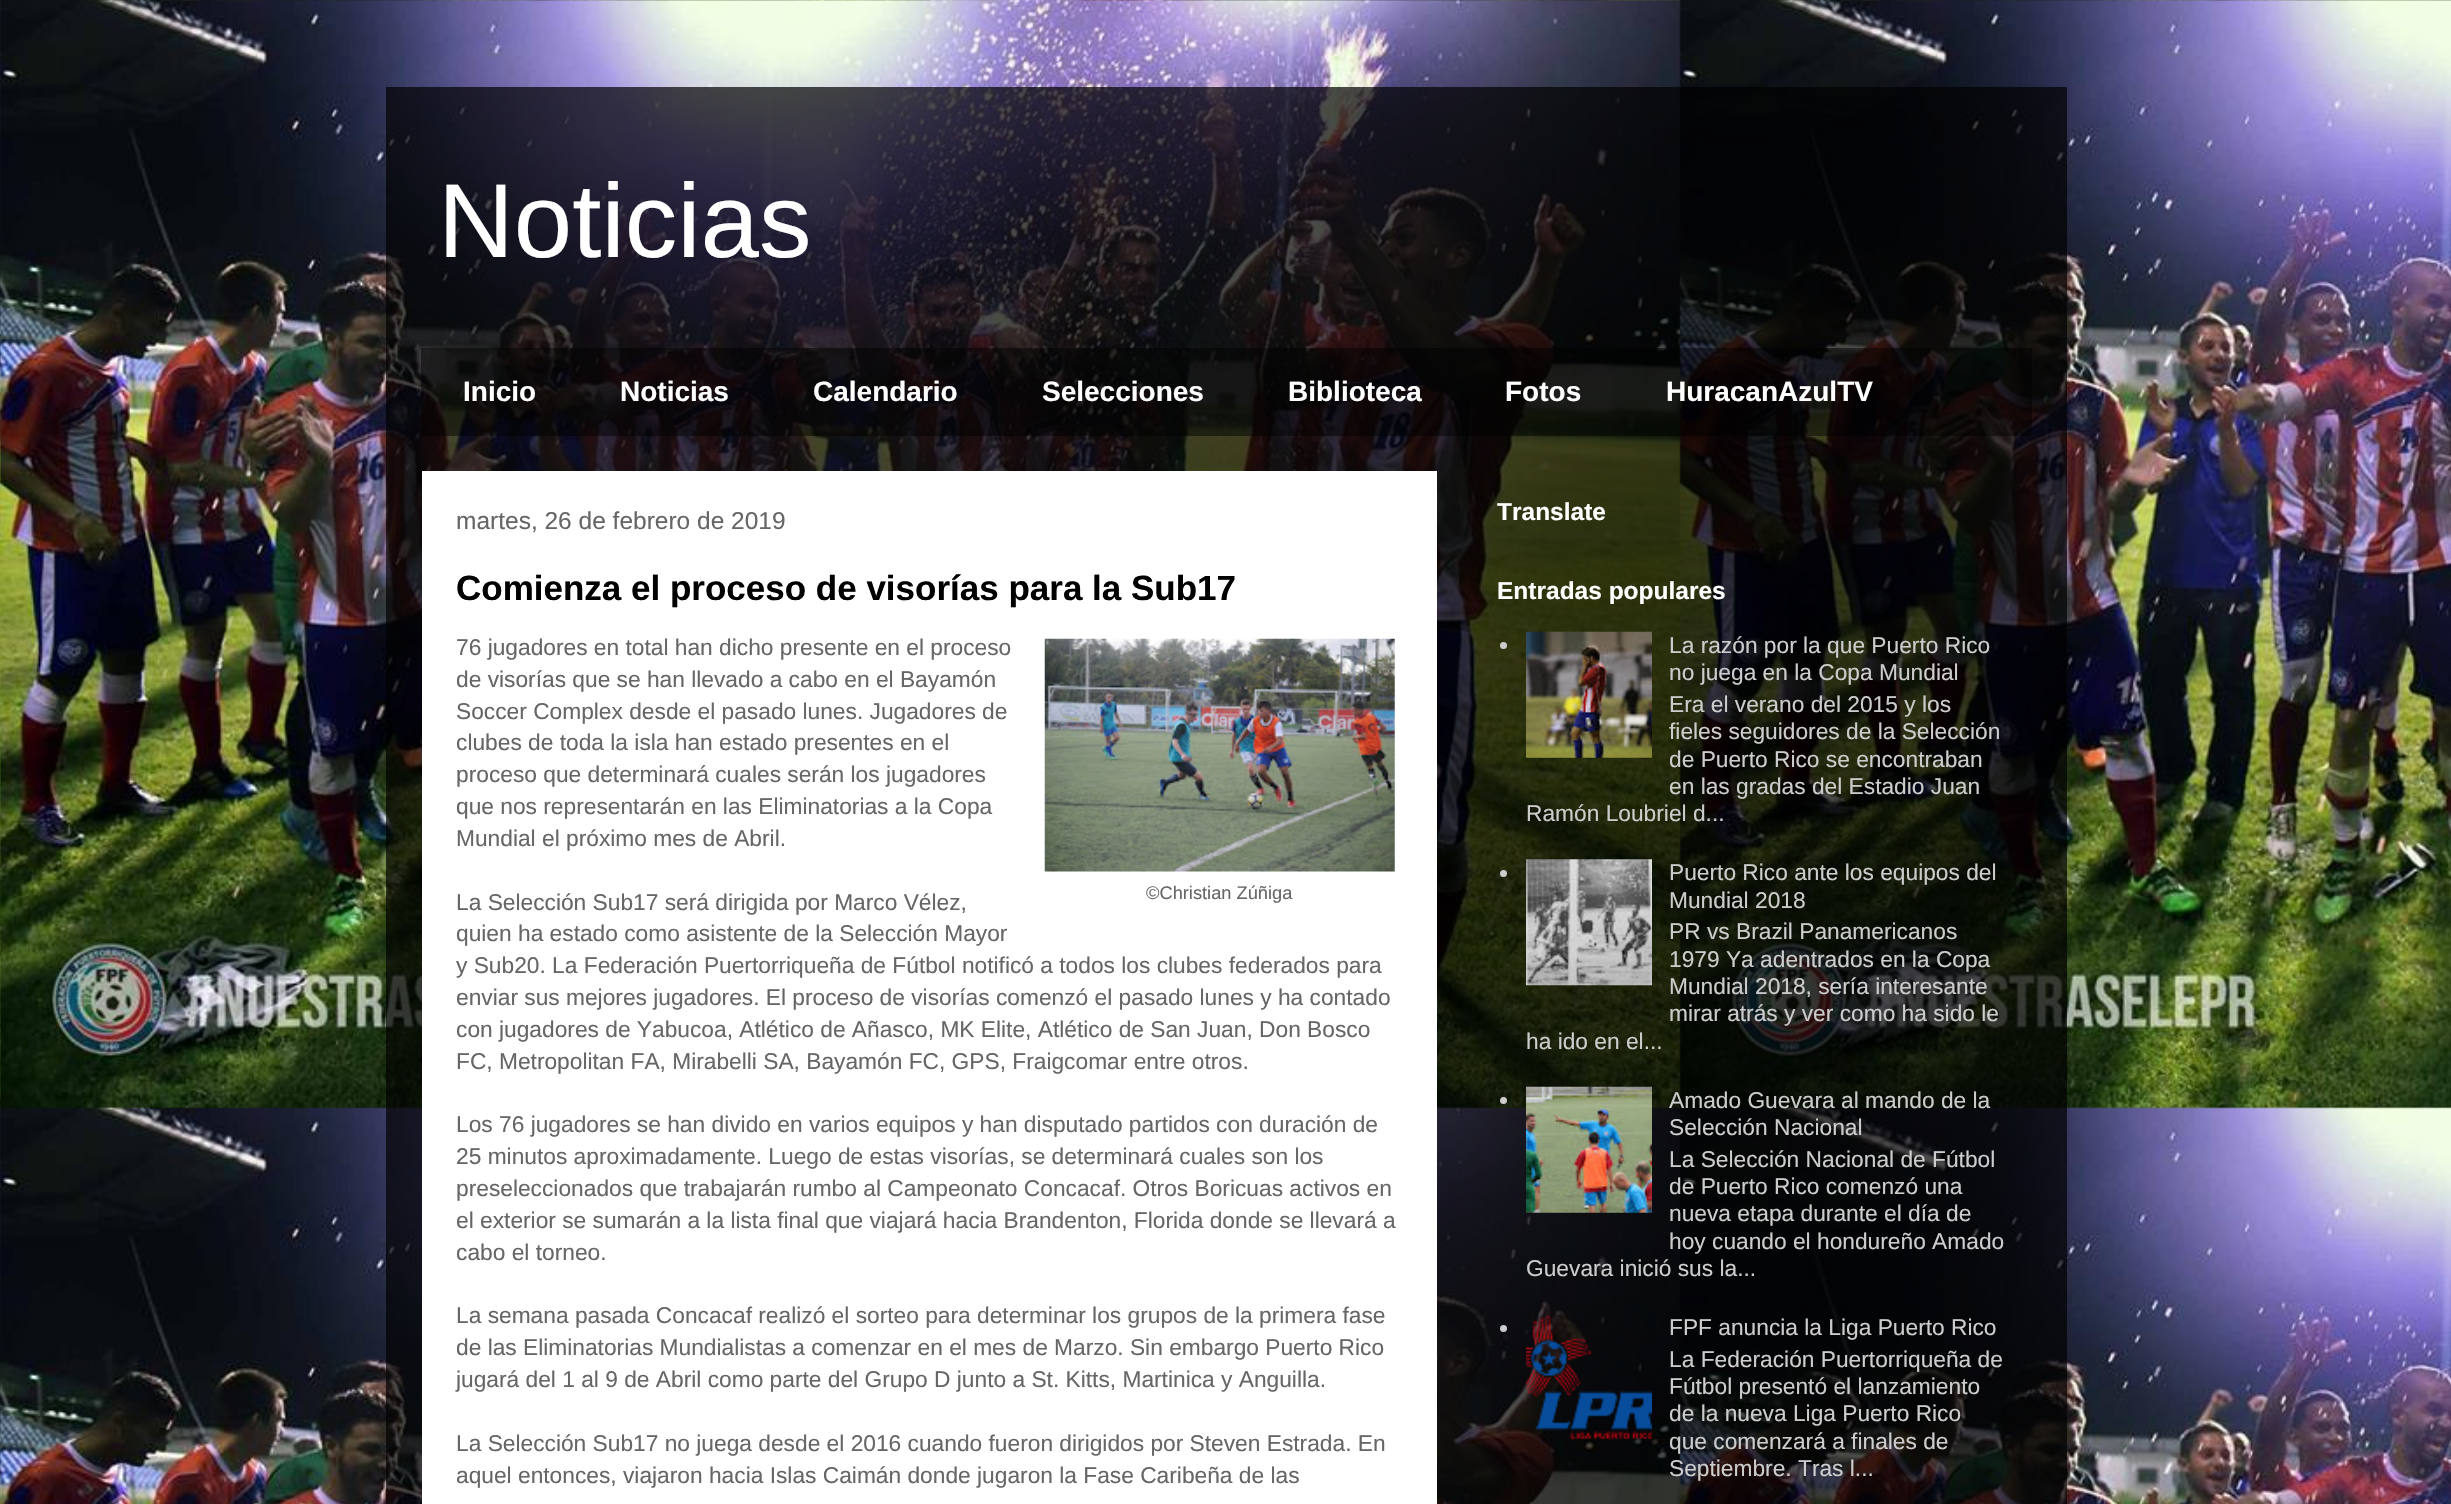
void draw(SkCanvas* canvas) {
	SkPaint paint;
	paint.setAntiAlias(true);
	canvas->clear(0xffffffff);
	canvas->drawImageRect(SkImages::DeferredFromEncodedData(SkData::MakeFromFileName("img1.png")), SkRect::MakeXYWH(0, 0, 2451, 1504), SkSamplingOptions());
	paint.setColor(0xb3000000);
	canvas->drawRect(SkRect::MakeXYWH(386, 87, 1681, 1417), paint);
	SkFont f1(fontMgr->matchFamilyStyle("Liberation Sans", SkFontStyle::Normal()), 105);
	f1.setSubpixel(true);
	paint.setColor(0xffffffff);
	canvas->drawString("Noticias", 438, 257, f1, paint);
	paint.setColor(0x80000000);
	canvas->drawRect(SkRect::MakeXYWH(421, 348, 1611, 88), paint);
	SkFont f2(fontMgr->matchFamilyStyle("Liberation Sans", SkFontStyle::Bold()), 28);
	f2.setSubpixel(true);
	paint.setColor(0xffffffff);
	canvas->drawString("Inicio", 463, 401, f2, paint);
	canvas->drawString("Noticias", 620, 401, f2, paint);
	canvas->drawString("Calendario", 813, 401, f2, paint);
	canvas->drawString("Selecciones", 1042, 401, f2, paint);
	canvas->drawString("Biblioteca", 1288, 401, f2, paint);
	canvas->drawString("Fotos", 1505, 401, f2, paint);
	canvas->drawString("HuracanAzulTV", 1666, 401, f2, paint);
	canvas->drawRect(SkRect::MakeXYWH(422, 471, 1015, 1033), paint);
	SkFont f3(fontMgr->matchFamilyStyle("Liberation Sans", SkFontStyle::Normal()), 24.5);
	f3.setSubpixel(true);
	paint.setColor(0xff666666);
	canvas->drawString("martes, 26 de febrero de 2019", 456, 529, f3, paint);
	SkFont f4(fontMgr->matchFamilyStyle("Liberation Sans", SkFontStyle::Bold()), 35);
	f4.setSubpixel(true);
	paint.setColor(0xff000000);
	canvas->drawString("Comienza el proceso de visorías para la Sub17", 456, 600, f4, paint);
	SkFont f5(fontMgr->matchFamilyStyle("Liberation Sans", SkFontStyle::Normal()), 22.75);
	f5.setSubpixel(true);
	paint.setColor(0xff666666);
	canvas->drawString("76 jugadores en total han dicho presente en el proceso", 456, 655, f5, paint);
	canvas->drawString("de visorías que se han llevado a cabo en el Bayamón", 456, 687, f5, paint);
	canvas->drawString("Soccer Complex desde el pasado lunes. Jugadores de", 456, 719, f5, paint);
	canvas->drawString("clubes de toda la isla han estado presentes en el", 456, 750, f5, paint);
	canvas->drawString("proceso que determinará cuales serán los jugadores", 456, 782, f5, paint);
	canvas->drawString("que nos representarán en las Eliminatorias a la Copa", 456, 814, f5, paint);
	canvas->drawString("Mundial el próximo mes de Abril.", 456, 846, f5, paint);
	canvas->drawString("La Selección Sub17 será dirigida por Marco Vélez,", 456, 910, f5, paint);
	canvas->drawImageRect(SkImages::DeferredFromEncodedData(SkData::MakeFromFileName("img2.png")), SkRect::MakeXYWH(1044, 638, 351, 234), SkSamplingOptions());
	SkFont f6(fontMgr->matchFamilyStyle("Liberation Sans", SkFontStyle::Normal()), 18.25);
	f6.setSubpixel(true);
	canvas->drawString("©Christian Zúñiga", 1146, 899, f6, paint);
	canvas->drawString("quien ha estado como asistente de la Selección Mayor", 456, 941, f5, paint);
	canvas->drawString("y Sub20. La Federación Puertorriqueña de Fútbol notificó a todos los clubes federados para", 456, 973, f5, paint);
	canvas->drawString("enviar sus mejores jugadores. El proceso de visorías comenzó el pasado lunes y ha contado", 456, 1005, f5, paint);
	canvas->drawString("con jugadores de Yabucoa, Atlético de Añasco, MK Elite, Atlético de San Juan, Don Bosco", 456, 1037, f5, paint);
	canvas->drawString("FC, Metropolitan FA, Mirabelli SA, Bayamón FC, GPS, Fraigcomar entre otros.", 456, 1069, f5, paint);
	canvas->drawString("Los 76 jugadores se han divido en varios equipos y han disputado partidos con duración de", 456, 1132, f5, paint);
	canvas->drawString("25 minutos aproximadamente. Luego de estas visorías, se determinará cuales son los", 456, 1164, f5, paint);
	canvas->drawString("preseleccionados que trabajarán rumbo al Campeonato Concacaf. Otros Boricuas activos en", 456, 1196, f5, paint);
	canvas->drawString("el exterior se sumarán a la lista final que viajará hacia Brandenton, Florida donde se llevará a", 456, 1228, f5, paint);
	canvas->drawString("cabo el torneo.", 456, 1260, f5, paint);
	canvas->drawString("La semana pasada Concacaf realizó el sorteo para determinar los grupos de la primera fase", 456, 1323, f5, paint);
	canvas->drawString("de las Eliminatorias Mundialistas a comenzar en el mes de Marzo. Sin embargo Puerto Rico", 456, 1355, f5, paint);
	canvas->drawString("jugará del 1 al 9 de Abril como parte del Grupo D junto a St. Kitts, Martinica y Anguilla.", 456, 1387, f5, paint);
	canvas->drawString("La Selección Sub17 no juega desde el 2016 cuando fueron dirigidos por Steven Estrada. En", 456, 1451, f5, paint);
	canvas->drawString("aquel entonces, viajaron hacia Islas Caimán donde jugaron la Fase Caribeña de las", 456, 1483, f5, paint);
	SkFont f7(fontMgr->matchFamilyStyle("Liberation Sans", SkFontStyle::Bold()), 24.5);
	f7.setSubpixel(true);
	paint.setColor(0xffffffff);
	canvas->drawString("Translate", 1497, 520, f7, paint);
	canvas->drawString("Entradas populares", 1497, 599, f7, paint);
	paint.setColor(0xffcccccc);
	canvas->drawCircle(1503.5, 645.5, 3.5, paint);
	canvas->drawImageRect(SkImages::DeferredFromEncodedData(SkData::MakeFromFileName("img3.png")), SkRect::MakeXYWH(1526, 631, 126, 127), SkSamplingOptions());
	canvas->drawString("La razón por la que Puerto Rico", 1669, 653, f5, paint);
	canvas->drawString("no juega en la Copa Mundial", 1669, 680, f5, paint);
	canvas->drawString("Era el verano del 2015 y los", 1669, 712, f5, paint);
	canvas->drawString("fieles seguidores de la Selección", 1669, 739, f5, paint);
	canvas->drawString("de Puerto Rico se encontraban", 1669, 767, f5, paint);
	canvas->drawString("en las gradas del Estadio Juan", 1669, 794, f5, paint);
	canvas->drawString("Ramón Loubriel d...", 1526, 821, f5, paint);
	canvas->drawCircle(1503.5, 873.5, 3.5, paint);
	canvas->drawImageRect(SkImages::DeferredFromEncodedData(SkData::MakeFromFileName("img4.png")), SkRect::MakeXYWH(1526, 859, 126, 127), SkSamplingOptions());
	canvas->drawString("Puerto Rico ante los equipos del", 1669, 880, f5, paint);
	canvas->drawString("Mundial 2018", 1669, 908, f5, paint);
	canvas->drawString("PR vs Brazil Panamericanos", 1669, 939, f5, paint);
	canvas->drawString("1979 Ya adentrados en la Copa", 1669, 967, f5, paint);
	canvas->drawString("Mundial 2018, sería interesante", 1669, 994, f5, paint);
	canvas->drawString("mirar atrás y ver como ha sido le", 1669, 1021, f5, paint);
	canvas->drawString("ha ido en el...", 1526, 1049, f5, paint);
	canvas->drawCircle(1503.5, 1100.5, 3.5, paint);
	canvas->drawImageRect(SkImages::DeferredFromEncodedData(SkData::MakeFromFileName("img5.png")), SkRect::MakeXYWH(1526, 1086, 126, 127), SkSamplingOptions());
	canvas->drawString("Amado Guevara al mando de la", 1669, 1108, f5, paint);
	canvas->drawString("Selección Nacional", 1669, 1135, f5, paint);
	canvas->drawString("La Selección Nacional de Fútbol", 1669, 1167, f5, paint);
	canvas->drawString("de Puerto Rico comenzó una", 1669, 1194, f5, paint);
	canvas->drawString("nueva etapa durante el día de", 1669, 1221, f5, paint);
	canvas->drawString("hoy cuando el hondureño Amado", 1669, 1249, f5, paint);
	canvas->drawString("Guevara inició sus la...", 1526, 1276, f5, paint);
	canvas->drawCircle(1503.5, 1328.5, 3.5, paint);
	canvas->drawImageRect(SkImages::DeferredFromEncodedData(SkData::MakeFromFileName("img6.png")), SkRect::MakeXYWH(1526, 1315, 126, 126), SkSamplingOptions());
	canvas->drawString("FPF anuncia la Liga Puerto Rico", 1669, 1335, f5, paint);
	canvas->drawString("La Federación Puertorriqueña de", 1669, 1367, f5, paint);
	canvas->drawString("Fútbol presentó el lanzamiento", 1669, 1394, f5, paint);
	canvas->drawString("de la nueva Liga Puerto Rico", 1669, 1421, f5, paint);
	canvas->drawString("que comenzará a finales de", 1669, 1449, f5, paint);
	canvas->drawString("Septiembre. Tras l...", 1669, 1476, f5, paint);
}
